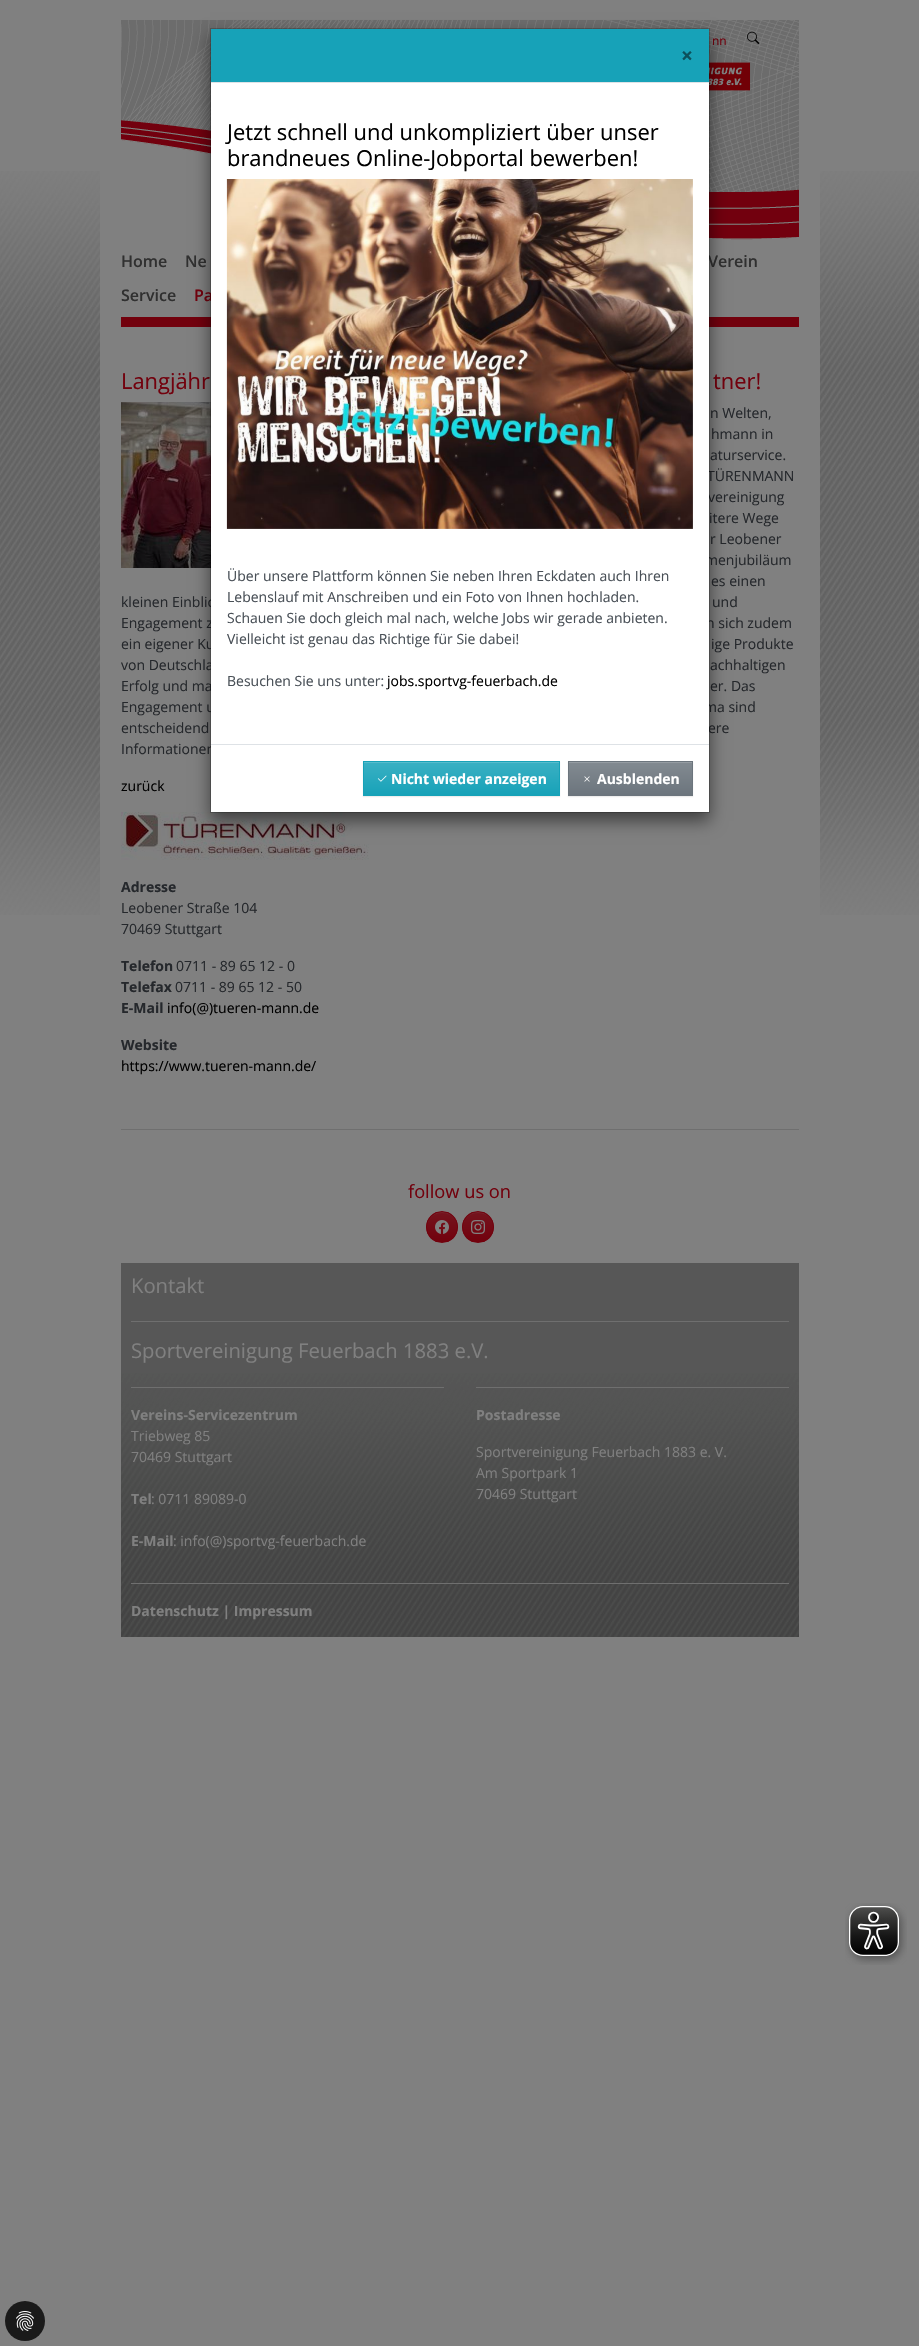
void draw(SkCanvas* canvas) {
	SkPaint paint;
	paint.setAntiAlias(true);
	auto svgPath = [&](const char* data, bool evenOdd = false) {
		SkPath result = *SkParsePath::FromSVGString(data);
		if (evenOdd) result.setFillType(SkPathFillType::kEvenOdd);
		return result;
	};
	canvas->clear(0xff808080);
	canvas->drawImageRect(SkImages::DeferredFromEncodedData(SkData::MakeFromFileName("img1.png")), SkRect::MakeXYWH(0, 171, 919, 744), SkSamplingOptions());
	paint.setColor(0xff808080);
	canvas->drawRect(SkRect::MakeXYWH(100, 171, 720, 744), paint);
	canvas->drawImageRect(SkImages::DeferredFromEncodedData(SkData::MakeFromFileName("img2.png")), SkRect::MakeXYWH(121, 20, 678, 220), SkSamplingOptions());
	SkFont f1(fontMgr->matchFamilyStyle("Open Sans", SkFontStyle::Normal()), 12);
	f1.setSubpixel(true);
	paint.setColor(0xff72010d);
	canvas->drawString("nn", 712, 45, f1, paint);
	canvas->drawImageRect(SkImages::DeferredFromEncodedData(SkData::MakeFromFileName("img3.png")), SkRect::MakeXYWH(747, 31, 13, 13), SkSamplingOptions());
	canvas->drawImageRect(SkImages::DeferredFromEncodedData(SkData::MakeFromFileName("img4.png")), SkRect::MakeXYWH(709, 62, 42, 29), SkSamplingOptions());
	SkFont f2(fontMgr->matchFamilyStyle("Open Sans", SkFontStyle(600, SkFontStyle::kNormal_Width, SkFontStyle::kUpright_Slant)), 16);
	f2.setSubpixel(true);
	paint.setColor(0xff303030);
	canvas->drawString("Home", 121, 267, f2, paint);
	canvas->drawString("Ne", 185, 267, f2, paint);
	canvas->drawString("Verein", 708, 267, f2, paint);
	canvas->drawString("Service", 121, 301, f2, paint);
	paint.setColor(0xff72010d);
	canvas->drawString("Pa", 194, 301, f2, paint);
	canvas->drawRect(SkRect::MakeXYWH(121, 317, 678, 10), paint);
	SkFont f3(fontMgr->matchFamilyStyle("Open Sans", SkFontStyle::Normal()), 21.9);
	f3.setSubpixel(true);
	canvas->drawString("Langjähr", 121, 389, f3, paint);
	canvas->drawString("tner!", 713, 389, f3, paint);
	canvas->drawImageRect(SkImages::DeferredFromEncodedData(SkData::MakeFromFileName("img5.png")), SkRect::MakeXYWH(121, 402, 90, 166), SkSamplingOptions());
	SkFont f4(fontMgr->matchFamilyStyle("Open Sans", SkFontStyle::Normal()), 14);
	f4.setSubpixel(true);
	paint.setColor(0xff25282c);
	canvas->drawString("n Welten,", 710, 418, f4, paint);
	canvas->drawString("hmann in", 711, 439, f4, paint);
	canvas->drawString("aturservice.", 710, 460, f4, paint);
	canvas->drawString("TÜRENMANN", 707, 481, f4, paint);
	canvas->drawString("vereinigung", 708, 502, f4, paint);
	canvas->drawString("itere Wege", 709, 523, f4, paint);
	canvas->drawString("r Leobener", 710, 544, f4, paint);
	canvas->drawString("menjubiläum", 705, 565, f4, paint);
	canvas->drawString("es einen", 711, 586, f4, paint);
	canvas->drawString("kleinen Einblic", 121, 607, f4, paint);
	canvas->drawString("und", 712, 607, f4, paint);
	canvas->drawString("Engagement z", 121, 628, f4, paint);
	canvas->drawString("n sich zudem", 706, 628, f4, paint);
	canvas->drawString("ein eigener Ku", 121, 649, f4, paint);
	canvas->drawString("ige Produkte", 711, 649, f4, paint);
	canvas->drawString("von Deutschla", 121, 670, f4, paint);
	canvas->drawString("achhaltigen", 710, 670, f4, paint);
	canvas->drawString("Erfolg und ma", 121, 691, f4, paint);
	canvas->drawString("er. Das", 710, 691, f4, paint);
	canvas->drawString("Engagement u", 121, 712, f4, paint);
	canvas->drawString("ma sind", 704, 712, f4, paint);
	canvas->drawString("entscheidend", 121, 733, f4, paint);
	canvas->drawString("ere", 708, 733, f4, paint);
	canvas->drawString("Informationen", 121, 754, f4, paint);
	paint.setColor(0xff000000);
	canvas->drawString("zurück", 121, 791, f4, paint);
	canvas->drawImageRect(SkImages::DeferredFromEncodedData(SkData::MakeFromFileName("img6.png")), SkRect::MakeXYWH(121, 812, 248, 48), SkSamplingOptions());
	SkFont f5(fontMgr->matchFamilyStyle("Open Sans", SkFontStyle::Bold()), 14);
	f5.setSubpixel(true);
	paint.setColor(0xff25282c);
	canvas->drawString("Adresse", 121, 892, f5, paint);
	canvas->drawString("Leobener Straße 104", 121, 913, f4, paint);
	canvas->drawString("70469 Stuttgart", 121, 934, f4, paint);
	canvas->drawString("Telefon", 121, 971, f5, paint);
	canvas->drawString("0711 - 89 65 12 - 0", 176, 971, f4, paint);
	canvas->drawString("Telefax", 121, 992, f5, paint);
	canvas->drawString("0711 - 89 65 12 - 50", 175, 992, f4, paint);
	canvas->drawString("E-Mail", 121, 1013, f5, paint);
	paint.setColor(0xff000000);
	canvas->drawString("info(@)tueren-mann.de", 167, 1013, f4, paint);
	paint.setColor(0xff25282c);
	canvas->drawString("Website", 121, 1050, f5, paint);
	paint.setColor(0xff000000);
	canvas->drawString("https://www.tueren-mann.de/", 121, 1071, f4, paint);
	paint.setColor(0xff6f6f6f);
	canvas->drawRect(SkRect::MakeXYWH(121, 1129, 678, 1), paint);
	SkFont f6(fontMgr->matchFamilyStyle("Open Sans", SkFontStyle::Normal()), 18.25);
	f6.setSubpixel(true);
	paint.setColor(0xff72010d);
	canvas->drawString("follow us on", 408, 1198, f6, paint);
	canvas->save();
	canvas->clipPath(svgPath("M442 1211C451 1211 458 1218 458 1227C458 1236 451 1243 442 1243C433 1243 426 1236 426 1227C426 1218 433 1211 442 1211Z"), true);
	{
		const SkColor colors[] = {0xff74141e, 0xff72010d};
		const float stops[] = {0, 1};
		const SkPoint ends[] = {{442, 1212}, {442, 1242}};
		paint.setShader(SkGradientShader::MakeLinear(ends, colors, stops, 2, SkTileMode::kClamp));
		paint.setAlpha(255);
	}
	canvas->drawRect(SkRect::MakeXYWH(426, 1212, 32, 30), paint);
	canvas->restore();
	paint.setShader(nullptr);
	paint.setColor(0x26808080);
	canvas->drawPath(svgPath("M442 1213C452 1213 457 1220 457 1227.5C457 1224.5 456 1221 454.5 1218.5C446 1206 426.5 1212.5 427 1227.5C427 1220 432 1213 442 1213Z"), paint);
	paint.setStroke(true);
	paint.setStrokeWidth(1);
	paint.setColor(0xff72010d);
	canvas->drawCircle(442, 1227, 15.5, paint);
	canvas->drawImageRect(SkImages::DeferredFromEncodedData(SkData::MakeFromFileName("img7.png")), SkRect::MakeXYWH(435, 1220, 14, 14), SkSamplingOptions());
	canvas->save();
	canvas->clipPath(svgPath("M478 1211C487 1211 494 1218 494 1227C494 1236 487 1243 478 1243C469 1243 462 1236 462 1227C462 1218 469 1211 478 1211Z"), true);
	paint.setStroke(false);
	{
		const SkColor colors[] = {0xff74141e, 0xff72010d};
		const float stops[] = {0, 1};
		const SkPoint ends[] = {{478, 1212}, {478, 1242}};
		paint.setShader(SkGradientShader::MakeLinear(ends, colors, stops, 2, SkTileMode::kClamp));
		paint.setAlpha(255);
	}
	canvas->drawRect(SkRect::MakeXYWH(462, 1212, 32, 30), paint);
	canvas->restore();
	paint.setShader(nullptr);
	paint.setColor(0x26808080);
	canvas->drawPath(svgPath("M478 1213C488 1213 493 1220 493 1227.5C493 1224.5 492 1221 490.5 1218.5C482 1206 462.5 1212.5 463 1227.5C463 1220 468 1213 478 1213Z"), paint);
	paint.setStroke(true);
	paint.setColor(0xff72010d);
	canvas->drawCircle(478, 1227, 15.5, paint);
	canvas->drawImageRect(SkImages::DeferredFromEncodedData(SkData::MakeFromFileName("img8.png")), SkRect::MakeXYWH(471, 1220, 14, 14), SkSamplingOptions());
	paint.setStroke(false);
	paint.setColor(0xff575757);
	canvas->drawRect(SkRect::MakeXYWH(121, 1263, 678, 374), paint);
	canvas->drawImageRect(SkImages::DeferredFromEncodedData(SkData::MakeFromFileName("img9.png")), SkRect::MakeXYWH(121, 1373, 678, 264), SkSamplingOptions());
	SkFont f7(fontMgr->matchFamilyStyle("Open Sans", SkFontStyle::Normal()), 20.25);
	f7.setSubpixel(true);
	paint.setColor(0xff808080);
	canvas->drawString("Kontakt", 131, 1293, f7, paint);
	paint.setColor(0xff6f6f6f);
	canvas->drawRect(SkRect::MakeXYWH(131, 1321, 658, 1), paint);
	paint.setColor(0xff808080);
	canvas->drawString("Sportvereinigung Feuerbach 1883 e.V.", 131, 1358, f7, paint);
	paint.setColor(0xff6f6f6f);
	canvas->drawRect(SkRect::MakeXYWH(131, 1387, 313, 1), paint);
	paint.setColor(0xff808080);
	canvas->drawString("Vereins-Servicezentrum", 131, 1420, f5, paint);
	canvas->drawString("Triebweg 85", 131, 1441, f4, paint);
	canvas->drawString("70469 Stuttgart", 131, 1462, f4, paint);
	canvas->drawString("Tel", 131, 1504, f5, paint);
	canvas->drawString(": 0711 89089-0", 151, 1504, f4, paint);
	canvas->drawString("E-Mail", 131, 1546, f5, paint);
	canvas->drawString(": info(@)sportvg-feuerbach.de", 173, 1546, f4, paint);
	paint.setColor(0xff6f6f6f);
	canvas->drawRect(SkRect::MakeXYWH(476, 1387, 313, 1), paint);
	paint.setColor(0xff808080);
	canvas->drawString("Postadresse", 476, 1420, f5, paint);
	canvas->drawString("Sportvereinigung Feuerbach 1883 e. V.", 476, 1457, f4, paint);
	canvas->drawString("Am Sportpark 1", 476, 1478, f4, paint);
	canvas->drawString("70469 Stuttgart", 476, 1499, f4, paint);
	paint.setColor(0xff6f6f6f);
	canvas->drawRect(SkRect::MakeXYWH(131, 1583, 658, 1), paint);
	paint.setColor(0xff808080);
	canvas->drawString("Datenschutz | Impressum", 131, 1616, f5, paint);
	paint.setColor(0x80000000);
	paint.setMaskFilter(SkMaskFilter::MakeBlur(kNormal_SkBlurStyle, 8));
	canvas->drawRect(SkRect::MakeXYWH(210, 36, 500, 785), paint);
	paint.setMaskFilter(nullptr);
	paint.setColor(0xffffffff);
	canvas->drawRect(SkRect::MakeXYWH(211, 83, 498, 729), paint);
	paint.setStroke(true);
	paint.setColor(0x33000000);
	canvas->drawRect(SkRect::MakeXYWH(210.5, 28.5, 499, 784), paint);
	paint.setStroke(false);
	paint.setColor(0xff17a2b8);
	canvas->drawRect(SkRect::MakeXYWH(211, 29, 498, 53), paint);
	paint.setColor(0xffdee2e6);
	canvas->drawRect(SkRect::MakeXYWH(211, 82, 498, 1), paint);
	SkFont f8(fontMgr->matchFamilyStyle("Open Sans", SkFontStyle::Bold()), 21);
	f8.setSubpixel(true);
	paint.setColor(0xff0c515c);
	canvas->drawString("×", 681, 63, f8, paint);
	paint.setColor(0xff000000);
	canvas->drawString("Jetzt schnell und unkompliziert über unser", 227, 140, f3, paint);
	canvas->drawString("brandneues Online-Jobportal bewerben!", 227, 166, f3, paint);
	canvas->drawImageRect(SkImages::DeferredFromEncodedData(SkData::MakeFromFileName("img10.png")), SkRect::MakeXYWH(226, 179, 467, 350), SkSamplingOptions());
	paint.setColor(0xff495057);
	canvas->drawString("Über unsere Plattform können Sie neben Ihren Eckdaten auch Ihren", 227, 581, f4, paint);
	canvas->drawString("Lebenslauf mit Anschreiben und ein Foto von Ihnen hochladen.", 227, 602, f4, paint);
	canvas->drawString("Schauen Sie doch gleich mal nach, welche Jobs wir gerade anbieten.", 227, 623, f4, paint);
	canvas->drawString("Vielleicht ist genau das Richtige für Sie dabei!", 227, 644, f4, paint);
	canvas->drawString("Besuchen Sie uns unter:", 227, 686, f4, paint);
	paint.setColor(0xff000000);
	canvas->drawString("jobs.sportvg-feuerbach.de", 387, 686, f4, paint);
	paint.setColor(0xffdee2e6);
	canvas->drawRect(SkRect::MakeXYWH(211, 744, 498, 1), paint);
	paint.setColor(0x12000000);
	paint.setMaskFilter(SkMaskFilter::MakeBlur(kNormal_SkBlurStyle, 0.5));
	canvas->drawRect(SkRect::MakeXYWH(363, 762, 197, 35), paint);
	paint.setMaskFilter(nullptr);
	{
		const SkColor colors[] = {0xff3ab0c3, 0xff17a2b8};
		const float stops[] = {0, 1};
		const SkPoint ends[] = {{462, 762}, {462, 795}};
		paint.setShader(SkGradientShader::MakeLinear(ends, colors, stops, 2, SkTileMode::kClamp));
		paint.setAlpha(255);
	}
	canvas->drawRect(SkRect::MakeXYWH(364, 763, 195, 32), paint);
	paint.setShader(nullptr);
	paint.setColor(0xff57bccc);
	canvas->drawRect(SkRect::MakeXYWH(364, 762, 195, 1), paint);
	paint.setStroke(true);
	paint.setColor(0xff17a2b8);
	canvas->drawRect(SkRect::MakeXYWH(363.5, 761.5, 196, 34), paint);
	canvas->drawImageRect(SkImages::DeferredFromEncodedData(SkData::MakeFromFileName("img11.png")), SkRect::MakeXYWH(377, 775, 10, 7), SkSamplingOptions());
	paint.setStroke(false);
	paint.setColor(0xffffffff);
	canvas->drawString("Nicht wieder anzeigen", 391, 784, f5, paint);
	paint.setColor(0x12000000);
	paint.setMaskFilter(SkMaskFilter::MakeBlur(kNormal_SkBlurStyle, 0.5));
	canvas->drawRect(SkRect::MakeXYWH(568, 762, 125, 35), paint);
	paint.setMaskFilter(nullptr);
	{
		const SkColor colors[] = {0xff828a91, 0xff6c757d};
		const float stops[] = {0, 1};
		const SkPoint ends[] = {{631, 762}, {631, 795}};
		paint.setShader(SkGradientShader::MakeLinear(ends, colors, stops, 2, SkTileMode::kClamp));
		paint.setAlpha(255);
	}
	canvas->drawRect(SkRect::MakeXYWH(569, 763, 123, 32), paint);
	paint.setShader(nullptr);
	paint.setColor(0xff959ca2);
	canvas->drawRect(SkRect::MakeXYWH(569, 762, 123, 1), paint);
	paint.setStroke(true);
	paint.setColor(0xff6c757d);
	canvas->drawRect(SkRect::MakeXYWH(568.5, 761.5, 124, 34), paint);
	canvas->drawImageRect(SkImages::DeferredFromEncodedData(SkData::MakeFromFileName("img12.png")), SkRect::MakeXYWH(584, 776, 6, 6), SkSamplingOptions());
	paint.setStroke(false);
	paint.setColor(0xffffffff);
	canvas->drawString("Ausblenden", 597, 784, f5, paint);
	canvas->drawImageRect(SkImages::DeferredFromEncodedData(SkData::MakeFromFileName("img13.png")), SkRect::MakeXYWH(845, 1903, 62, 62), SkSamplingOptions());
	paint.setColor(0xff1a1a1a);
	canvas->drawCircle(25, 2321, 20, paint);
	canvas->drawImageRect(SkImages::DeferredFromEncodedData(SkData::MakeFromFileName("img14.png")), SkRect::MakeXYWH(16, 2311, 18, 20), SkSamplingOptions());
}
